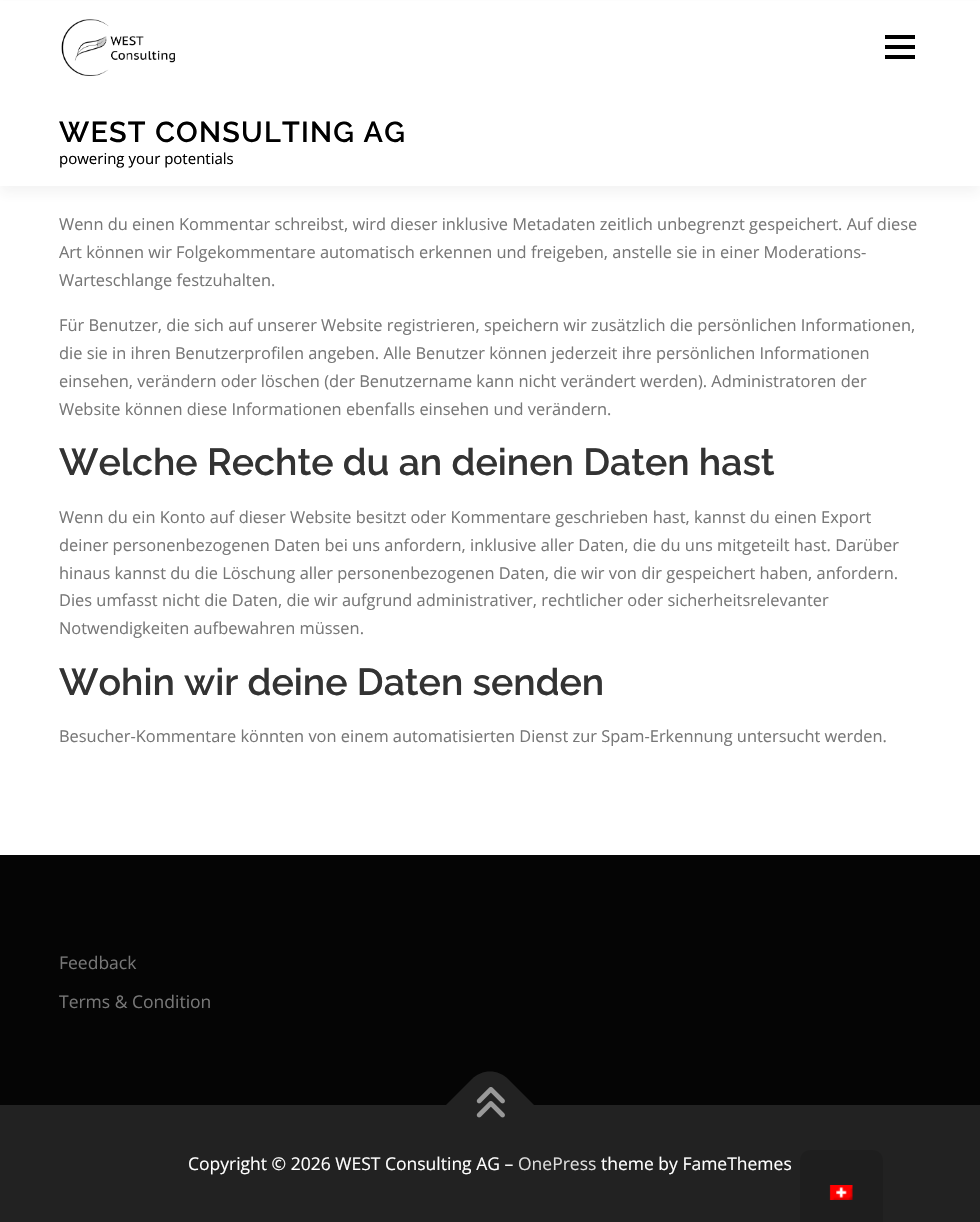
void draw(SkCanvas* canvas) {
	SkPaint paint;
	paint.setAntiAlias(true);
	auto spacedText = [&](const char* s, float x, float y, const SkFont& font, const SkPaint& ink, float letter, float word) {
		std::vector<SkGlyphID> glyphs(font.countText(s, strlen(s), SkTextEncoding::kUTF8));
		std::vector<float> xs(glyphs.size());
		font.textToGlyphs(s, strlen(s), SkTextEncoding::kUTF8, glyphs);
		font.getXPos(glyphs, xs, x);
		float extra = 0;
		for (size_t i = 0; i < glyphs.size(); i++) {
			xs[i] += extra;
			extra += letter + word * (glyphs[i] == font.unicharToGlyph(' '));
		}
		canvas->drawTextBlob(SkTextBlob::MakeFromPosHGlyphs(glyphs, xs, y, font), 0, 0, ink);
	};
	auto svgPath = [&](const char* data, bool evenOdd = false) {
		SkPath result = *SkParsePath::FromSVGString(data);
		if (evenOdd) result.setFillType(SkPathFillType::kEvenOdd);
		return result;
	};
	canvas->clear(0xffffffff);
	paint.setColor(0x0f323232);
	paint.setMaskFilter(SkMaskFilter::MakeBlur(kNormal_SkBlurStyle, 6));
	canvas->drawRect(SkRect::MakeXYWH(0, 6, 980, 187), paint);
	paint.setMaskFilter(nullptr);
	paint.setColor(0xffffffff);
	canvas->drawRect(SkRect::MakeXYWH(0, 1, 980, 185), paint);
	paint.setColor(0xff000000);
	canvas->drawRect(SkRect::MakeXYWH(885, 45, 30, 4), paint);
	canvas->drawRect(SkRect::MakeXYWH(885, 35, 30, 4), paint);
	canvas->drawRect(SkRect::MakeXYWH(885, 55, 30, 4), paint);
	canvas->drawImageRect(SkImages::DeferredFromEncodedData(SkData::MakeFromFileName("img1.png")), SkRect::MakeXYWH(61, 19, 114, 57), SkSamplingOptions());
	SkFont f1(fontMgr->matchFamilyStyle("Raleway", SkFontStyle(600, SkFontStyle::kNormal_Width, SkFontStyle::kUpright_Slant)), 28.75);
	f1.setSubpixel(true);
	spacedText("WEST CONSULTING AG", 59, 142, f1, paint, 1.25, 0);
	SkFont f2(fontMgr->matchFamilyStyle("Open Sans", SkFontStyle::Normal()), 15);
	f2.setSubpixel(true);
	canvas->drawString("powering your potentials", 59, 164, f2, paint);
	SkFont f3(fontMgr->matchFamilyStyle("Open Sans", SkFontStyle::Normal()), 16.4);
	f3.setSubpixel(true);
	paint.setColor(0xff777777);
	canvas->drawString("Wenn du einen Kommentar schreibst, wird dieser inklusive Metadaten zeitlich unbegrenzt gespeichert. Auf diese", 59, 230, f3, paint);
	canvas->drawString("Art können wir Folgekommentare automatisch erkennen und freigeben, anstelle sie in einer Moderations-", 59, 258, f3, paint);
	canvas->drawString("Warteschlange festzuhalten.", 59, 286, f3, paint);
	canvas->drawString("Für Benutzer, die sich auf unserer Website registrieren, speichern wir zusätzlich die persönlichen Informationen,", 59, 331, f3, paint);
	canvas->drawString("die sie in ihren Benutzerprofilen angeben. Alle Benutzer können jederzeit ihre persönlichen Informationen", 59, 359, f3, paint);
	canvas->drawString("einsehen, verändern oder löschen (der Benutzername kann nicht verändert werden). Administratoren der", 59, 387, f3, paint);
	canvas->drawString("Website können diese Informationen ebenfalls einsehen und verändern.", 59, 415, f3, paint);
	SkFont f4(fontMgr->matchFamilyStyle("Raleway", SkFontStyle(600, SkFontStyle::kNormal_Width, SkFontStyle::kUpright_Slant)), 37.5);
	f4.setSubpixel(true);
	paint.setColor(0xff333333);
	canvas->drawString("Welche Rechte du an deinen Daten hast", 59, 475, f4, paint);
	paint.setColor(0xff777777);
	canvas->drawString("Wenn du ein Konto auf dieser Website besitzt oder Kommentare geschrieben hast, kannst du einen Export", 59, 523, f3, paint);
	canvas->drawString("deiner personenbezogenen Daten bei uns anfordern, inklusive aller Daten, die du uns mitgeteilt hast. Darüber", 59, 551, f3, paint);
	canvas->drawString("hinaus kannst du die Löschung aller personenbezogenen Daten, die wir von dir gespeichert haben, anfordern.", 59, 579, f3, paint);
	canvas->drawString("Dies umfasst nicht die Daten, die wir aufgrund administrativer, rechtlicher oder sicherheitsrelevanter", 59, 606, f3, paint);
	canvas->drawString("Notwendigkeiten aufbewahren müssen.", 59, 634, f3, paint);
	paint.setColor(0xff333333);
	canvas->drawString("Wohin wir deine Daten senden", 59, 695, f4, paint);
	paint.setColor(0xff777777);
	canvas->drawString("Besucher-Kommentare könnten von einem automatisierten Dienst zur Spam-Erkennung untersucht werden.", 59, 742, f3, paint);
	paint.setColor(0xff050505);
	canvas->drawRect(SkRect::MakeXYWH(0, 855, 980, 250), paint);
	SkFont f5(fontMgr->matchFamilyStyle("Open Sans", SkFontStyle::Normal()), 17.5);
	f5.setSubpixel(true);
	paint.setColor(0xff777777);
	canvas->drawString("Feedback", 59, 969, f5, paint);
	canvas->drawString("Terms & Condition", 59, 1008, f5, paint);
	paint.setColor(0xff222222);
	canvas->drawRect(SkRect::MakeXYWH(0, 1105, 980, 117), paint);
	canvas->drawPath(svgPath("M446 1105L472 1079C482 1069 498 1069 508 1079L534 1105L490 1150Z"), paint);
	canvas->drawImageRect(SkImages::DeferredFromEncodedData(SkData::MakeFromFileName("img2.png")), SkRect::MakeXYWH(476, 1087, 29, 31), SkSamplingOptions());
	paint.setColor(0xffffffff);
	canvas->drawString("Copyright © 2026 WEST Consulting AG –", 188, 1170, f5, paint);
	paint.setColor(0xffdddddd);
	canvas->drawString("OnePress", 518, 1170, f5, paint);
	paint.setColor(0xffffffff);
	canvas->drawString("theme by FameThemes", 601, 1170, f5, paint);
	paint.setColor(0xff1e1e1e);
	canvas->drawPath(svgPath("M810 1150H873C878.5 1150 883 1154.5 883 1160V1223H800V1160C800 1154.5 804.5 1150 810 1150Z"), paint);
	canvas->drawImageRect(SkImages::DeferredFromEncodedData(SkData::MakeFromFileName("img3.png")), SkRect::MakeXYWH(829, 1185, 24, 15), SkSamplingOptions());
}
